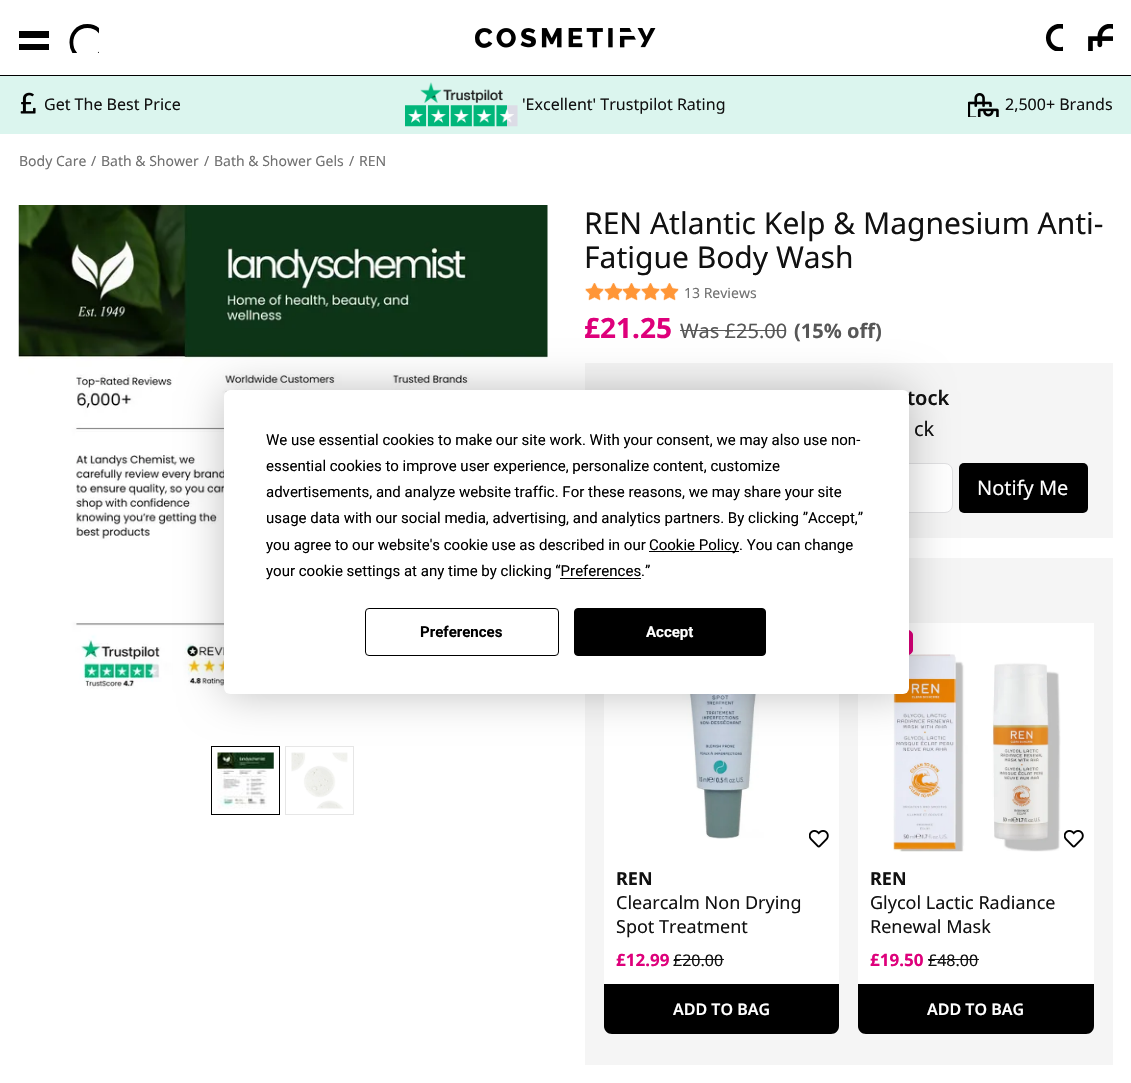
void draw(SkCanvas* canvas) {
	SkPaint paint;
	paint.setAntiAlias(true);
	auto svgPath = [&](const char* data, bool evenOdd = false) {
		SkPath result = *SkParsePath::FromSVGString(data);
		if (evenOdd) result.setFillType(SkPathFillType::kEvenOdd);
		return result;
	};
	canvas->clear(0xffffffff);
	paint.setColor(0xff000000);
	canvas->drawRect(SkRect::MakeXYWH(0, 75, 1131, 1), paint);
	canvas->save();
	canvas->clipRect(SkRect::MakeXYWH(19, 23, 30, 30));
	canvas->drawPath(svgPath("M19 31H69L65 38H19ZM19 44H62L58 50H19ZM19 56H54L51 62H19Z"), paint);
	canvas->restore();
	canvas->save();
	canvas->clipRect(SkRect::MakeXYWH(69, 23, 30, 30));
	paint.setStroke(true);
	paint.setStrokeWidth(3.8);
	canvas->drawPath(svgPath("M87.5 59C66 59 66 26 87.5 26C109 26 109 59 87.5 59ZM100.5 53.5L114 67L113.5 68L99.5 54.5Z"), paint);
	canvas->restore();
	canvas->drawImageRect(SkImages::DeferredFromEncodedData(SkData::MakeFromFileName("img1.png")), SkRect::MakeXYWH(475, 28, 181, 20), SkSamplingOptions());
	canvas->drawImageRect(SkImages::DeferredFromEncodedData(SkData::MakeFromFileName("img2.png")), SkRect::MakeXYWH(1045, 24, 18, 27), SkSamplingOptions());
	canvas->drawImageRect(SkImages::DeferredFromEncodedData(SkData::MakeFromFileName("img3.png")), SkRect::MakeXYWH(1088, 24, 25, 27), SkSamplingOptions());
	paint.setStroke(false);
	paint.setColor(0xffdbf5ee);
	canvas->drawRect(SkRect::MakeXYWH(0, 76, 1131, 58), paint);
	canvas->drawImageRect(SkImages::DeferredFromEncodedData(SkData::MakeFromFileName("img4.png")), SkRect::MakeXYWH(20, 92, 16, 22), SkSamplingOptions());
	SkFont f1(fontMgr->matchFamilyStyle("Noto Sans", SkFontStyle::Normal()), 16);
	f1.setSubpixel(true);
	paint.setColor(0xff111111);
	canvas->drawString("Get The Best Price", 44, 110, f1, paint);
	canvas->drawImageRect(SkImages::DeferredFromEncodedData(SkData::MakeFromFileName("img5.png")), SkRect::MakeXYWH(405, 82, 113, 45), SkSamplingOptions());
	canvas->drawString("'Excellent' Trustpilot Rating", 522, 110, f1, paint);
	canvas->drawImageRect(SkImages::DeferredFromEncodedData(SkData::MakeFromFileName("img6.png")), SkRect::MakeXYWH(968, 93, 31, 24), SkSamplingOptions());
	canvas->drawString("2,500+ Brands", 1005, 110, f1, paint);
	SkFont f2(fontMgr->matchFamilyStyle("Noto Sans", SkFontStyle::Normal()), 14);
	f2.setSubpixel(true);
	paint.setColor(0xff717171);
	canvas->drawString("Body Care", 19, 166, f2, paint);
	canvas->drawString("/", 91, 166, f2, paint);
	canvas->drawString("Bath & Shower", 101, 166, f2, paint);
	canvas->drawString("/", 204, 166, f2, paint);
	canvas->drawString("Bath & Shower Gels", 214, 166, f2, paint);
	canvas->drawString("/", 349, 166, f2, paint);
	canvas->drawString("REN", 359, 166, f2, paint);
	canvas->drawImageRect(SkImages::DeferredFromEncodedData(SkData::MakeFromFileName("img7.png")), SkRect::MakeXYWH(18, 205, 530, 485), SkSamplingOptions());
	paint.setStroke(true);
	paint.setStrokeWidth(1);
	paint.setColor(0xff000000);
	canvas->drawRect(SkRect::MakeXYWH(211.5, 746.5, 68, 68), paint);
	canvas->drawImageRect(SkImages::DeferredFromEncodedData(SkData::MakeFromFileName("img8.png")), SkRect::MakeXYWH(217, 752, 57, 57), SkSamplingOptions());
	paint.setColor(0xffe6e6e6);
	canvas->drawRect(SkRect::MakeXYWH(285.5, 746.5, 68, 68), paint);
	canvas->drawImageRect(SkImages::DeferredFromEncodedData(SkData::MakeFromFileName("img9.png")), SkRect::MakeXYWH(291, 752, 57, 57), SkSamplingOptions());
	SkFont f3(fontMgr->matchFamilyStyle("Noto Sans", SkFontStyle::Normal()), 30);
	f3.setSubpixel(true);
	paint.setStroke(false);
	paint.setColor(0xff111111);
	canvas->drawString("REN Atlantic Kelp & Magnesium Anti-", 584, 234, f3, paint);
	canvas->drawString("Fatigue Body Wash", 584, 268, f3, paint);
	canvas->drawImageRect(SkImages::DeferredFromEncodedData(SkData::MakeFromFileName("img10.png")), SkRect::MakeXYWH(585, 283, 94, 17), SkSamplingOptions());
	canvas->drawImageRect(SkImages::DeferredFromEncodedData(SkData::MakeFromFileName("img11.png")), SkRect::MakeXYWH(585, 283, 94, 18), SkSamplingOptions());
	paint.setColor(0xff717171);
	canvas->drawString("13 Reviews", 684, 298, f2, paint);
	SkFont f4(fontMgr->matchFamilyStyle("Noto Sans", SkFontStyle::Bold()), 28);
	f4.setSubpixel(true);
	paint.setColor(0xffde007b);
	canvas->drawString("£21.25", 584, 338, f4, paint);
	SkFont f5(fontMgr->matchFamilyStyle("Noto Sans", SkFontStyle::Normal()), 20);
	f5.setSubpixel(true);
	paint.setColor(0xff575757);
	canvas->drawString("Was £25.00", 680, 338, f5, paint);
	canvas->drawRect(SkRect::MakeXYWH(680, 330, 106, 1), paint);
	SkFont f6(fontMgr->matchFamilyStyle("Noto Sans", SkFontStyle::Bold()), 20);
	f6.setSubpixel(true);
	canvas->drawString("(15% off)", 794, 338, f6, paint);
	paint.setColor(0xfff5f5f5);
	canvas->drawRect(SkRect::MakeXYWH(585, 363, 528, 175), paint);
	SkFont f7(fontMgr->matchFamilyStyle("Noto Sans", SkFontStyle(600, SkFontStyle::kNormal_Width, SkFontStyle::kUpright_Slant)), 20);
	f7.setSubpixel(true);
	paint.setColor(0xff111111);
	canvas->drawString("tock", 907, 405, f7, paint);
	canvas->drawString("ck", 914, 436, f5, paint);
	paint.setColor(0xffffffff);
	canvas->drawRoundRect(SkRect::MakeXYWH(610.5, 463.5, 342, 49), 7.5, 7.5, paint);
	paint.setStroke(true);
	paint.setColor(0xffe0e0e2);
	canvas->drawRoundRect(SkRect::MakeXYWH(610.5, 463.5, 342, 49), 7.5, 7.5, paint);
	paint.setStroke(false);
	paint.setColor(0xff000000);
	canvas->drawRoundRect(SkRect::MakeXYWH(959, 463, 129, 50), 5, 5, paint);
	paint.setColor(0xffffffff);
	canvas->drawString("Notify Me", 977, 495, f5, paint);
	paint.setColor(0xfff5f5f5);
	canvas->drawRect(SkRect::MakeXYWH(585, 558, 528, 507), paint);
	paint.setColor(0xffffffff);
	canvas->drawRect(SkRect::MakeXYWH(604, 694, 235, 290), paint);
	canvas->drawImageRect(SkImages::DeferredFromEncodedData(SkData::MakeFromFileName("img12.png")), SkRect::MakeXYWH(809, 830, 20, 18), SkSamplingOptions());
	canvas->drawImageRect(SkImages::DeferredFromEncodedData(SkData::MakeFromFileName("img13.png")), SkRect::MakeXYWH(682, 694, 82, 145), SkSamplingOptions());
	SkFont f8(fontMgr->matchFamilyStyle("Noto Sans", SkFontStyle::Bold()), 18);
	f8.setSubpixel(true);
	paint.setColor(0xff111111);
	canvas->drawString("REN", 616, 885, f8, paint);
	SkFont f9(fontMgr->matchFamilyStyle("Noto Sans", SkFontStyle::Normal()), 18);
	f9.setSubpixel(true);
	canvas->drawString("Clearcalm Non Drying", 616, 909, f9, paint);
	canvas->drawString("Spot Treatment", 616, 933, f9, paint);
	SkFont f10(fontMgr->matchFamilyStyle("Noto Sans", SkFontStyle::Bold()), 17);
	f10.setSubpixel(true);
	paint.setColor(0xffde007b);
	canvas->drawString("£12.99", 616, 966, f10, paint);
	paint.setColor(0xff111111);
	canvas->drawString("£20.00", 673, 966, f1, paint);
	canvas->drawRect(SkRect::MakeXYWH(674, 959, 50, 1), paint);
	paint.setColor(0xff000000);
	canvas->drawPath(svgPath("M604 984H839V1026C839 1030.5 835.5 1034 831 1034H612C607.5 1034 604 1030.5 604 1026Z"), paint);
	SkFont f11(fontMgr->matchFamilyStyle("Noto Sans", SkFontStyle(600, SkFontStyle::kNormal_Width, SkFontStyle::kUpright_Slant)), 16);
	f11.setSubpixel(true);
	paint.setColor(0xffffffff);
	canvas->drawString("ADD TO BAG", 673, 1015, f11, paint);
	canvas->drawRect(SkRect::MakeXYWH(858, 623, 236, 361), paint);
	canvas->drawImageRect(SkImages::DeferredFromEncodedData(SkData::MakeFromFileName("img14.png")), SkRect::MakeXYWH(893, 654, 168, 198), SkSamplingOptions());
	paint.setColor(0xffde007b);
	canvas->drawRoundRect(SkRect::MakeXYWH(865.5, 630.5, 47, 24), 4.5, 4.5, paint);
	paint.setStroke(true);
	canvas->drawRoundRect(SkRect::MakeXYWH(865.5, 630.5, 47, 24), 4.5, 4.5, paint);
	canvas->drawImageRect(SkImages::DeferredFromEncodedData(SkData::MakeFromFileName("img12.png")), SkRect::MakeXYWH(1064, 830, 20, 18), SkSamplingOptions());
	paint.setStroke(false);
	paint.setColor(0xff111111);
	canvas->drawString("REN", 870, 885, f8, paint);
	canvas->drawString("Glycol Lactic Radiance", 870, 909, f9, paint);
	canvas->drawString("Renewal Mask", 870, 933, f9, paint);
	paint.setColor(0xffde007b);
	canvas->drawString("£19.50", 870, 966, f10, paint);
	paint.setColor(0xff111111);
	canvas->drawString("£48.00", 928, 966, f1, paint);
	canvas->drawRect(SkRect::MakeXYWH(928, 959, 51, 1), paint);
	paint.setColor(0xff000000);
	canvas->drawPath(svgPath("M858 984H1094V1026C1094 1030.5 1090.5 1034 1086 1034H866C861.5 1034 858 1030.5 858 1026Z"), paint);
	paint.setColor(0xffffffff);
	canvas->drawString("ADD TO BAG", 927, 1015, f11, paint);
	paint.setColor(0x40000000);
	paint.setMaskFilter(SkMaskFilter::MakeBlur(kNormal_SkBlurStyle, 22));
	canvas->drawRoundRect(SkRect::MakeXYWH(224, 390, 685, 304), 6, 6, paint);
	paint.setMaskFilter(nullptr);
	paint.setColor(0xffffffff);
	canvas->drawRoundRect(SkRect::MakeXYWH(224, 390, 685, 304), 6, 6, paint);
	SkFont f12(fontMgr->matchFamilyStyle("Roboto", SkFontStyle::Normal()), 15);
	f12.setSubpixel(true);
	paint.setColor(0xff000000);
	canvas->drawString("We use essential cookies to make our site work. With your consent, we may also use non-", 266, 445, f12, paint);
	canvas->drawString("essential cookies to improve user experience, personalize content, customize", 266, 471, f12, paint);
	canvas->drawString("advertisements, and analyze website traffic. For these reasons, we may share your site", 266, 497, f12, paint);
	canvas->drawString("usage data with our social media, advertising, and analytics partners. By clicking ”Accept,”", 266, 523, f12, paint);
	canvas->drawString("you agree to our website's cookie use as described in our", 266, 550, f12, paint);
	canvas->drawRect(SkRect::MakeXYWH(649, 551, 90, 1), paint);
	canvas->drawString("Cookie Policy. You can change", 649, 550, f12, paint);
	canvas->drawString("your cookie settings at any time by clicking “Preferences.”", 266, 576, f12, paint);
	canvas->drawRect(SkRect::MakeXYWH(560, 578, 81, 1), paint);
	paint.setStroke(true);
	canvas->drawRoundRect(SkRect::MakeXYWH(365.5, 608.5, 193, 47), 3.5, 3.5, paint);
	SkFont f13(fontMgr->matchFamilyStyle("Roboto", SkFontStyle::Bold()), 15);
	f13.setSubpixel(true);
	paint.setStroke(false);
	canvas->drawString("Preferences", 420, 637, f13, paint);
	canvas->drawRoundRect(SkRect::MakeXYWH(574.5, 608.5, 191, 47), 3.5, 3.5, paint);
	paint.setStroke(true);
	canvas->drawRoundRect(SkRect::MakeXYWH(574.5, 608.5, 191, 47), 3.5, 3.5, paint);
	paint.setStroke(false);
	paint.setColor(0xffffffff);
	canvas->drawString("Accept", 646, 637, f13, paint);
}
